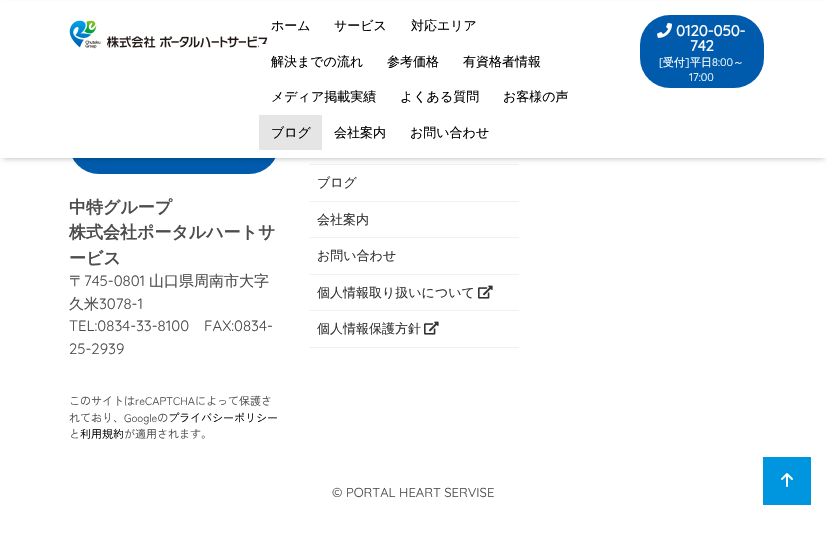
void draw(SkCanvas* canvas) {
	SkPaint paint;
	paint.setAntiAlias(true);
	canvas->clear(0xffffffff);
	paint.setColor(0xff005bac);
	canvas->drawRoundRect(SkRect::MakeXYWH(69, 114, 210, 60), 30, 30, paint);
	paint.setColor(0xfff1f1f1);
	canvas->drawRect(SkRect::MakeXYWH(309, 164, 210, 1), paint);
	paint.setColor(0x4d000000);
	paint.setMaskFilter(SkMaskFilter::MakeBlur(kNormal_SkBlurStyle, 3));
	canvas->drawRect(SkRect::MakeXYWH(3, 6, 821, 152), paint);
	paint.setMaskFilter(nullptr);
	paint.setColor(0xffffffff);
	canvas->drawRect(SkRect::MakeXYWH(0, 1, 827, 157), paint);
	canvas->drawImageRect(SkImages::DeferredFromEncodedData(SkData::MakeFromFileName("img1.png")), SkRect::MakeXYWH(69, 20, 199, 29), SkSamplingOptions());
	SkFont f1(fontMgr->matchFamilyStyle("WenQuanYi Zen Hei", SkFontStyle(500, SkFontStyle::kNormal_Width, SkFontStyle::kUpright_Slant)), 13);
	f1.setSubpixel(true);
	paint.setColor(0xff000000);
	canvas->drawString("ホーム", 271, 30, f1, paint);
	canvas->drawString("サービス", 334, 30, f1, paint);
	canvas->drawString("対応エリア", 411, 30, f1, paint);
	paint.setColor(0xffffffff);
	canvas->drawRect(SkRect::MakeXYWH(259, 44, 9, 4), paint);
	paint.setColor(0xff000000);
	canvas->drawString("解決までの流れ", 271, 66, f1, paint);
	canvas->drawString("参考価格", 387, 66, f1, paint);
	canvas->drawString("有資格者情報", 463, 66, f1, paint);
	canvas->drawString("メディア掲載実績", 271, 101, f1, paint);
	canvas->drawString("よくある質問", 400, 101, f1, paint);
	canvas->drawString("お客様の声", 503, 101, f1, paint);
	paint.setColor(0xffe5e5e5);
	canvas->drawRect(SkRect::MakeXYWH(259, 115, 63, 35), paint);
	paint.setColor(0xff000000);
	canvas->drawString("ブログ", 271, 137, f1, paint);
	canvas->drawString("会社案内", 334, 137, f1, paint);
	canvas->drawString("お問い合わせ", 410, 137, f1, paint);
	paint.setColor(0xff005bac);
	canvas->drawRoundRect(SkRect::MakeXYWH(640, 15, 124, 73), 30, 30, paint);
	canvas->drawImageRect(SkImages::DeferredFromEncodedData(SkData::MakeFromFileName("img2.png")), SkRect::MakeXYWH(657, 22, 15, 16), SkSamplingOptions());
	SkFont f2(fontMgr->matchFamilyStyle("Quicksand", SkFontStyle::Bold()), 15);
	f2.setSubpixel(true);
	paint.setColor(0xffffffff);
	canvas->drawString("0120-050-", 676, 36, f2, paint);
	canvas->drawString("742", 690, 51, f2, paint);
	SkFont f3(fontMgr->matchFamilyStyle("Quicksand", SkFontStyle(300, SkFontStyle::kNormal_Width, SkFontStyle::kUpright_Slant)), 11);
	f3.setSubpixel(true);
	canvas->drawString("[", 659, 66, f3, paint);
	SkFont f4(fontMgr->matchFamilyStyle("WenQuanYi Zen Hei", SkFontStyle(500, SkFontStyle::kNormal_Width, SkFontStyle::kUpright_Slant)), 11);
	f4.setSubpixel(true);
	canvas->drawString("受付", 663, 66, f4, paint);
	canvas->drawString("]", 685, 66, f3, paint);
	canvas->drawString("平日", 690, 66, f4, paint);
	canvas->drawString("8:00", 712, 66, f3, paint);
	canvas->drawString("～", 733, 66, f4, paint);
	canvas->drawString("17:00", 689, 81, f3, paint);
	SkFont f5(fontMgr->matchFamilyStyle("WenQuanYi Zen Hei", SkFontStyle::Bold()), 17);
	f5.setSubpixel(true);
	paint.setColor(0xff4d4d4d);
	canvas->drawString("中特グループ", 69, 213, f5, paint);
	canvas->drawString("株式会社ポータルハートサ", 69, 238, f5, paint);
	canvas->drawString("ービス", 69, 264, f5, paint);
	SkFont f6(fontMgr->matchFamilyStyle("WenQuanYi Zen Hei", SkFontStyle(500, SkFontStyle::kNormal_Width, SkFontStyle::kUpright_Slant)), 15);
	f6.setSubpixel(true);
	canvas->drawString("〒", 69, 286, f6, paint);
	SkFont f7(fontMgr->matchFamilyStyle("Quicksand", SkFontStyle(300, SkFontStyle::kNormal_Width, SkFontStyle::kUpright_Slant)), 15);
	f7.setSubpixel(true);
	canvas->drawString("745-0801", 84, 286, f7, paint);
	canvas->drawString("山口県周南市大字", 149, 286, f6, paint);
	canvas->drawString("久米", 69, 309, f6, paint);
	canvas->drawString("3078-1", 99, 309, f7, paint);
	canvas->drawString("TEL:0834-33-8100", 69, 331, f7, paint);
	canvas->drawString("FAX:0834-", 204, 331, f7, paint);
	canvas->drawString("25-2939", 69, 354, f7, paint);
	paint.setColor(0xfff1f1f1);
	canvas->drawRect(SkRect::MakeXYWH(309, 201, 210, 1), paint);
	paint.setColor(0xff333333);
	canvas->drawString("ブログ", 317, 187, f1, paint);
	paint.setColor(0xfff1f1f1);
	canvas->drawRect(SkRect::MakeXYWH(309, 237, 210, 1), paint);
	paint.setColor(0xff333333);
	canvas->drawString("会社案内", 317, 224, f1, paint);
	paint.setColor(0xfff1f1f1);
	canvas->drawRect(SkRect::MakeXYWH(309, 274, 210, 1), paint);
	paint.setColor(0xff333333);
	canvas->drawString("お問い合わせ", 317, 260, f1, paint);
	paint.setColor(0xfff1f1f1);
	canvas->drawRect(SkRect::MakeXYWH(309, 310, 210, 1), paint);
	paint.setColor(0xff333333);
	canvas->drawString("個人情報取り扱いについて", 317, 297, f1, paint);
	canvas->drawImageRect(SkImages::DeferredFromEncodedData(SkData::MakeFromFileName("img3.png")), SkRect::MakeXYWH(478, 285, 15, 14), SkSamplingOptions());
	paint.setColor(0xfff1f1f1);
	canvas->drawRect(SkRect::MakeXYWH(309, 347, 210, 1), paint);
	paint.setColor(0xff333333);
	canvas->drawString("個人情報保護方針", 317, 333, f1, paint);
	canvas->drawImageRect(SkImages::DeferredFromEncodedData(SkData::MakeFromFileName("img3.png")), SkRect::MakeXYWH(424, 321, 15, 14), SkSamplingOptions());
	SkFont f8(fontMgr->matchFamilyStyle("Zen Kaku Gothic Antique", SkFontStyle::Normal()), 11);
	f8.setSubpixel(true);
	paint.setColor(0xff4d4d4d);
	canvas->drawString("このサイトはreCAPTCHAによって保護さ", 69, 405, f8, paint);
	canvas->drawString("れており、Googleの", 69, 422, f8, paint);
	paint.setColor(0xff000000);
	canvas->drawString("プライバシーポリシー", 168, 422, f8, paint);
	paint.setColor(0xff4d4d4d);
	canvas->drawString("と", 69, 438, f8, paint);
	paint.setColor(0xff000000);
	canvas->drawString("利用規約", 80, 438, f8, paint);
	paint.setColor(0xff4d4d4d);
	canvas->drawString("が適用されます。", 124, 438, f8, paint);
	SkFont f9(fontMgr->matchFamilyStyle("Quicksand", SkFontStyle(300, SkFontStyle::kNormal_Width, SkFontStyle::kUpright_Slant)), 13);
	f9.setSubpixel(true);
	canvas->drawString("© PORTAL HEART SERVISE", 332, 497, f9, paint);
	paint.setColor(0xff0096df);
	canvas->drawRect(SkRect::MakeXYWH(763, 457, 48, 48), paint);
	canvas->drawImageRect(SkImages::DeferredFromEncodedData(SkData::MakeFromFileName("img4.png")), SkRect::MakeXYWH(781, 473, 12, 14), SkSamplingOptions());
}
